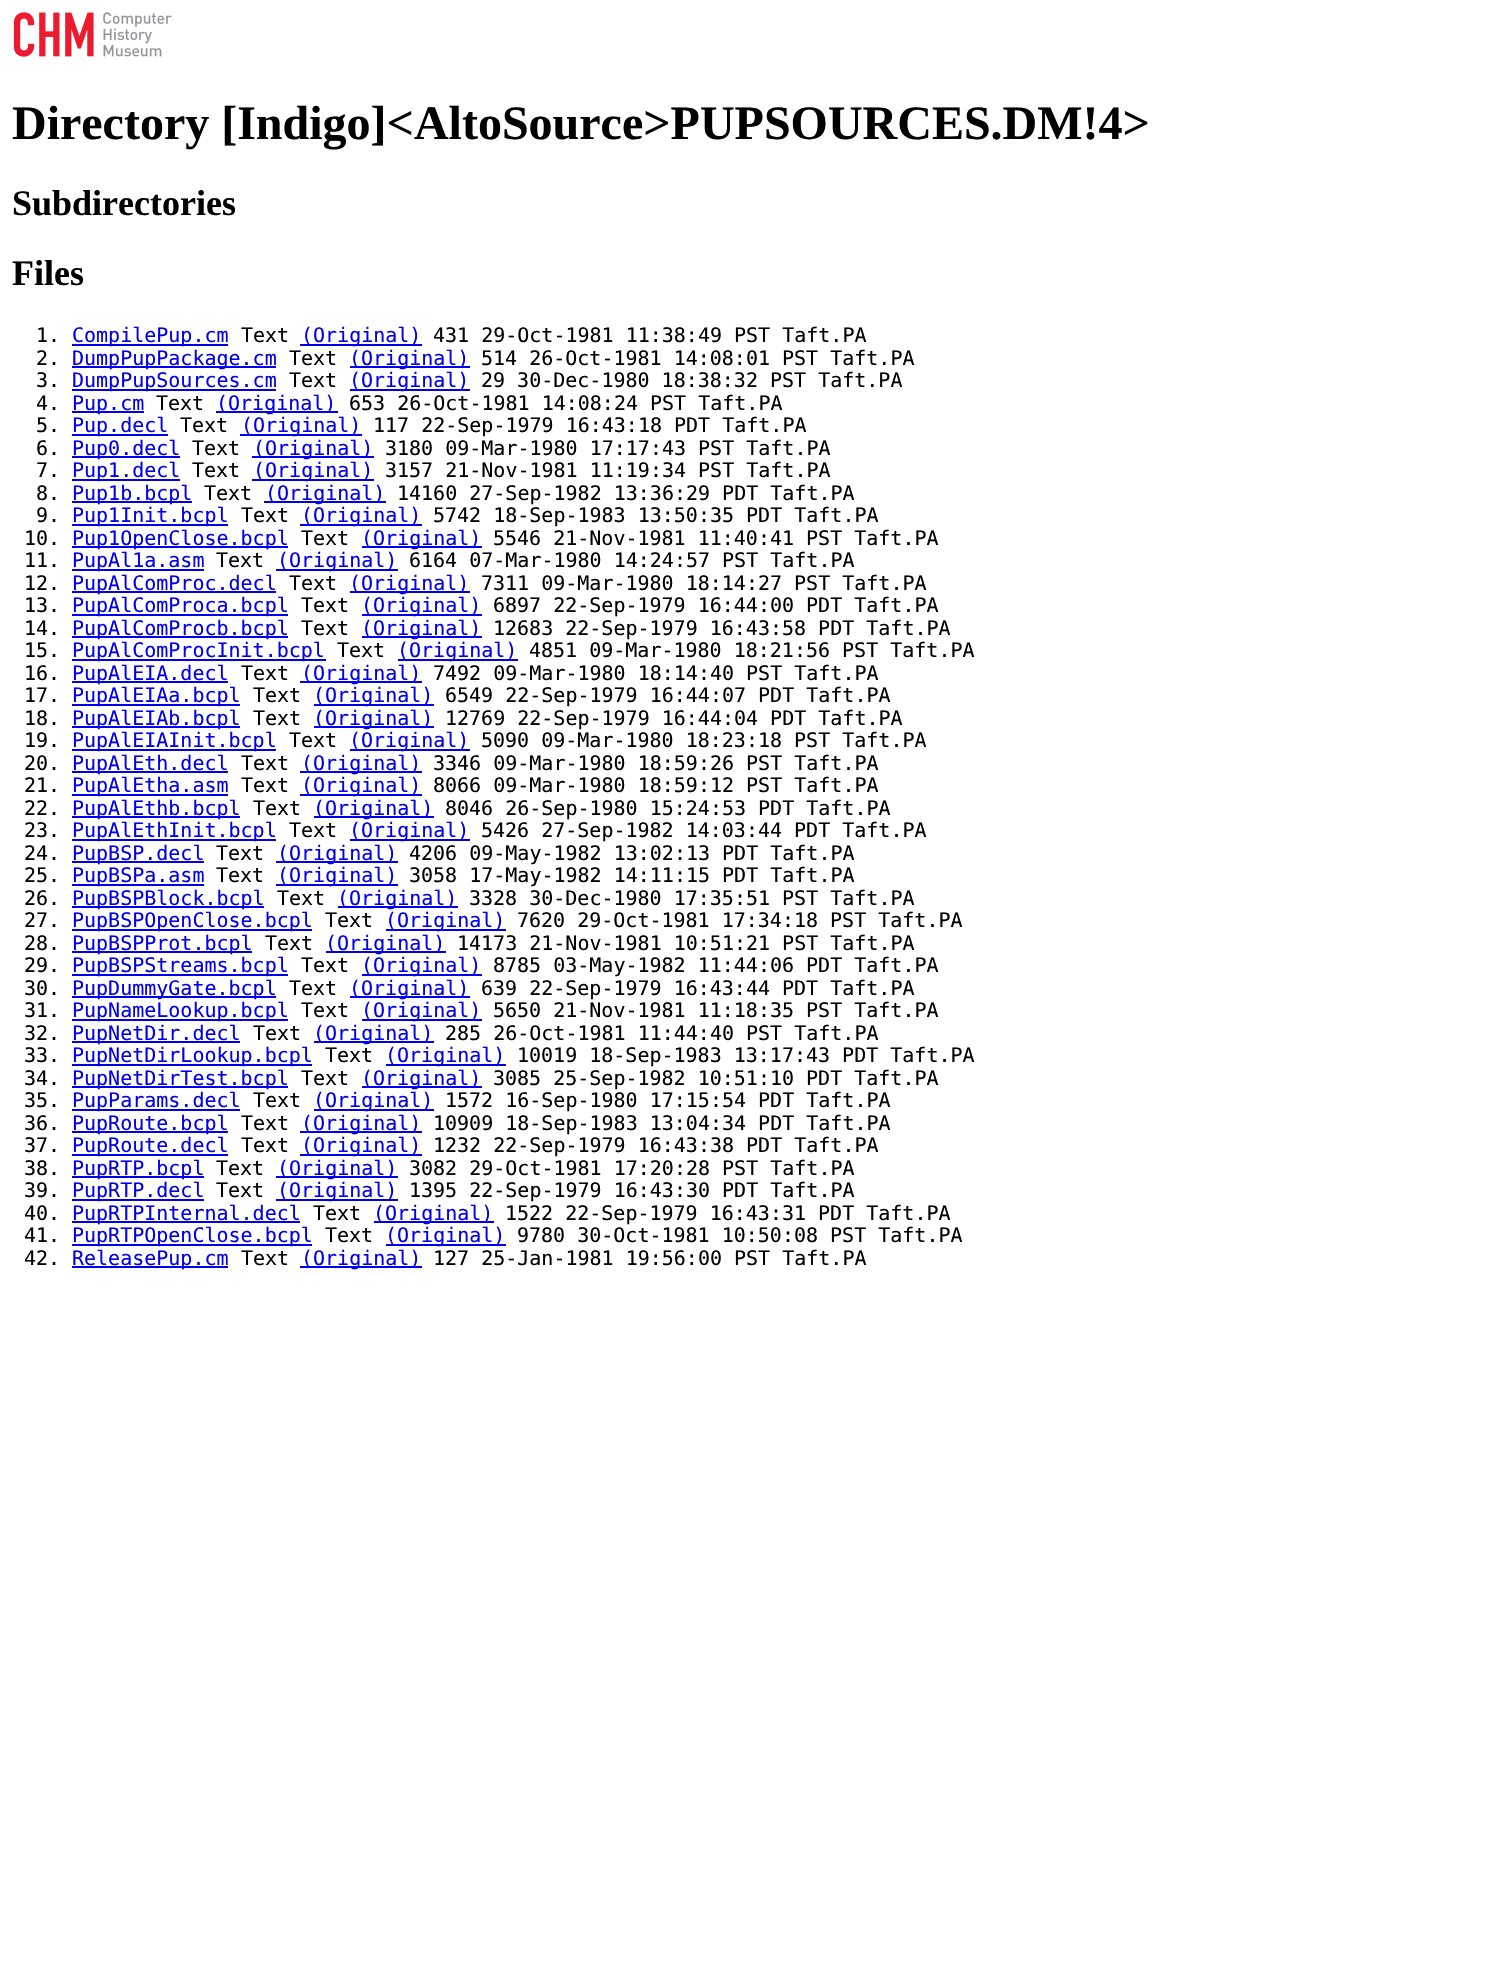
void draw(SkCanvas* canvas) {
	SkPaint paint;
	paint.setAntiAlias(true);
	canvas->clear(0xffffffff);
	canvas->drawImageRect(SkImages::DeferredFromEncodedData(SkData::MakeFromFileName("img1.png")), SkRect::MakeXYWH(13, 12, 159, 45), SkSamplingOptions());
	SkFont f1(fontMgr->matchFamilyStyle("Liberation Serif", SkFontStyle::Bold()), 48);
	f1.setSubpixel(true);
	paint.setColor(0xff000000);
	canvas->drawString("Directory [Indigo]<AltoSource>PUPSOURCES.DM!4>", 12, 139, f1, paint);
	SkFont f2(fontMgr->matchFamilyStyle("Liberation Serif", SkFontStyle::Bold()), 36);
	f2.setSubpixel(true);
	canvas->drawString("Subdirectories", 12, 215, f2, paint);
	canvas->drawString("Files", 12, 285, f2, paint);
	SkFont f3(fontMgr->matchFamilyStyle("DejaVu Sans Mono", SkFontStyle::Normal()), 20);
	f3.setSubpixel(true);
	canvas->drawString("1.", 36, 342, f3, paint);
	paint.setColor(0xff0000ee);
	canvas->drawRect(SkRect::MakeXYWH(72, 344, 156, 2), paint);
	canvas->drawString("CompilePup.cm", 72, 342, f3, paint);
	paint.setColor(0xff000000);
	canvas->drawString("Text", 241, 342, f3, paint);
	paint.setColor(0xff0000ee);
	canvas->drawRect(SkRect::MakeXYWH(300, 344, 122, 2), paint);
	canvas->drawString("(Original)", 301, 342, f3, paint);
	paint.setColor(0xff000000);
	canvas->drawString("431 29-Oct-1981 11:38:49 PST Taft.PA", 433, 342, f3, paint);
	canvas->drawString("2.", 36, 365, f3, paint);
	paint.setColor(0xff0000ee);
	canvas->drawRect(SkRect::MakeXYWH(72, 366, 204, 2), paint);
	canvas->drawString("DumpPupPackage.cm", 72, 365, f3, paint);
	paint.setColor(0xff000000);
	canvas->drawString("Text", 289, 365, f3, paint);
	paint.setColor(0xff0000ee);
	canvas->drawRect(SkRect::MakeXYWH(350, 366, 120, 2), paint);
	canvas->drawString("(Original)", 349, 365, f3, paint);
	paint.setColor(0xff000000);
	canvas->drawString("514 26-Oct-1981 14:08:01 PST Taft.PA", 481, 365, f3, paint);
	canvas->drawString("3.", 36, 387, f3, paint);
	paint.setColor(0xff0000ee);
	canvas->drawRect(SkRect::MakeXYWH(72, 389, 204, 2), paint);
	canvas->drawString("DumpPupSources.cm", 72, 387, f3, paint);
	paint.setColor(0xff000000);
	canvas->drawString("Text", 289, 387, f3, paint);
	paint.setColor(0xff0000ee);
	canvas->drawRect(SkRect::MakeXYWH(350, 389, 120, 2), paint);
	canvas->drawString("(Original)", 349, 387, f3, paint);
	paint.setColor(0xff000000);
	canvas->drawString("29 30-Dec-1980 18:38:32 PST Taft.PA", 481, 387, f3, paint);
	canvas->drawString("4.", 36, 410, f3, paint);
	paint.setColor(0xff0000ee);
	canvas->drawRect(SkRect::MakeXYWH(72, 411, 72, 2), paint);
	canvas->drawString("Pup.cm", 72, 410, f3, paint);
	paint.setColor(0xff000000);
	canvas->drawString("Text", 156, 410, f3, paint);
	paint.setColor(0xff0000ee);
	canvas->drawRect(SkRect::MakeXYWH(216, 411, 122, 2), paint);
	canvas->drawString("(Original)", 216, 410, f3, paint);
	paint.setColor(0xff000000);
	canvas->drawString("653 26-Oct-1981 14:08:24 PST Taft.PA", 349, 410, f3, paint);
	canvas->drawString("5.", 36, 432, f3, paint);
	paint.setColor(0xff0000ee);
	canvas->drawRect(SkRect::MakeXYWH(72, 434, 96, 2), paint);
	canvas->drawString("Pup.decl", 72, 432, f3, paint);
	paint.setColor(0xff000000);
	canvas->drawString("Text", 180, 432, f3, paint);
	paint.setColor(0xff0000ee);
	canvas->drawRect(SkRect::MakeXYWH(240, 434, 122, 2), paint);
	canvas->drawString("(Original)", 241, 432, f3, paint);
	paint.setColor(0xff000000);
	canvas->drawString("117 22-Sep-1979 16:43:18 PDT Taft.PA", 373, 432, f3, paint);
	canvas->drawString("6.", 36, 455, f3, paint);
	paint.setColor(0xff0000ee);
	canvas->drawRect(SkRect::MakeXYWH(72, 456, 108, 2), paint);
	canvas->drawString("Pup0.decl", 72, 455, f3, paint);
	paint.setColor(0xff000000);
	canvas->drawString("Text", 192, 455, f3, paint);
	paint.setColor(0xff0000ee);
	canvas->drawRect(SkRect::MakeXYWH(252, 456, 122, 2), paint);
	canvas->drawString("(Original)", 253, 455, f3, paint);
	paint.setColor(0xff000000);
	canvas->drawString("3180 09-Mar-1980 17:17:43 PST Taft.PA", 385, 455, f3, paint);
	canvas->drawString("7.", 36, 477, f3, paint);
	paint.setColor(0xff0000ee);
	canvas->drawRect(SkRect::MakeXYWH(72, 479, 108, 2), paint);
	canvas->drawString("Pup1.decl", 72, 477, f3, paint);
	paint.setColor(0xff000000);
	canvas->drawString("Text", 192, 477, f3, paint);
	paint.setColor(0xff0000ee);
	canvas->drawRect(SkRect::MakeXYWH(252, 479, 122, 2), paint);
	canvas->drawString("(Original)", 253, 477, f3, paint);
	paint.setColor(0xff000000);
	canvas->drawString("3157 21-Nov-1981 11:19:34 PST Taft.PA", 385, 477, f3, paint);
	canvas->drawString("8.", 36, 500, f3, paint);
	paint.setColor(0xff0000ee);
	canvas->drawRect(SkRect::MakeXYWH(72, 501, 120, 2), paint);
	canvas->drawString("Pup1b.bcpl", 72, 500, f3, paint);
	paint.setColor(0xff000000);
	canvas->drawString("Text", 204, 500, f3, paint);
	paint.setColor(0xff0000ee);
	canvas->drawRect(SkRect::MakeXYWH(264, 501, 122, 2), paint);
	canvas->drawString("(Original)", 265, 500, f3, paint);
	paint.setColor(0xff000000);
	canvas->drawString("14160 27-Sep-1982 13:36:29 PDT Taft.PA", 397, 500, f3, paint);
	canvas->drawString("9.", 36, 522, f3, paint);
	paint.setColor(0xff0000ee);
	canvas->drawRect(SkRect::MakeXYWH(72, 524, 156, 2), paint);
	canvas->drawString("Pup1Init.bcpl", 72, 522, f3, paint);
	paint.setColor(0xff000000);
	canvas->drawString("Text", 241, 522, f3, paint);
	paint.setColor(0xff0000ee);
	canvas->drawRect(SkRect::MakeXYWH(300, 524, 122, 2), paint);
	canvas->drawString("(Original)", 301, 522, f3, paint);
	paint.setColor(0xff000000);
	canvas->drawString("5742 18-Sep-1983 13:50:35 PDT Taft.PA", 433, 522, f3, paint);
	canvas->drawString("10.", 24, 545, f3, paint);
	paint.setColor(0xff0000ee);
	canvas->drawRect(SkRect::MakeXYWH(72, 546, 216, 2), paint);
	canvas->drawString("Pup1OpenClose.bcpl", 72, 545, f3, paint);
	paint.setColor(0xff000000);
	canvas->drawString("Text", 301, 545, f3, paint);
	paint.setColor(0xff0000ee);
	canvas->drawRect(SkRect::MakeXYWH(362, 546, 120, 2), paint);
	canvas->drawString("(Original)", 361, 545, f3, paint);
	paint.setColor(0xff000000);
	canvas->drawString("5546 21-Nov-1981 11:40:41 PST Taft.PA", 493, 545, f3, paint);
	canvas->drawString("11.", 24, 567, f3, paint);
	paint.setColor(0xff0000ee);
	canvas->drawRect(SkRect::MakeXYWH(72, 569, 132, 2), paint);
	canvas->drawString("PupAl1a.asm", 72, 567, f3, paint);
	paint.setColor(0xff000000);
	canvas->drawString("Text", 216, 567, f3, paint);
	paint.setColor(0xff0000ee);
	canvas->drawRect(SkRect::MakeXYWH(276, 569, 122, 2), paint);
	canvas->drawString("(Original)", 277, 567, f3, paint);
	paint.setColor(0xff000000);
	canvas->drawString("6164 07-Mar-1980 14:24:57 PST Taft.PA", 409, 567, f3, paint);
	canvas->drawString("12.", 24, 590, f3, paint);
	paint.setColor(0xff0000ee);
	canvas->drawRect(SkRect::MakeXYWH(72, 591, 204, 2), paint);
	canvas->drawString("PupAlComProc.decl", 72, 590, f3, paint);
	paint.setColor(0xff000000);
	canvas->drawString("Text", 289, 590, f3, paint);
	paint.setColor(0xff0000ee);
	canvas->drawRect(SkRect::MakeXYWH(350, 591, 120, 2), paint);
	canvas->drawString("(Original)", 349, 590, f3, paint);
	paint.setColor(0xff000000);
	canvas->drawString("7311 09-Mar-1980 18:14:27 PST Taft.PA", 481, 590, f3, paint);
	canvas->drawString("13.", 24, 612, f3, paint);
	paint.setColor(0xff0000ee);
	canvas->drawRect(SkRect::MakeXYWH(72, 614, 216, 2), paint);
	canvas->drawString("PupAlComProca.bcpl", 72, 612, f3, paint);
	paint.setColor(0xff000000);
	canvas->drawString("Text", 301, 612, f3, paint);
	paint.setColor(0xff0000ee);
	canvas->drawRect(SkRect::MakeXYWH(362, 614, 120, 2), paint);
	canvas->drawString("(Original)", 361, 612, f3, paint);
	paint.setColor(0xff000000);
	canvas->drawString("6897 22-Sep-1979 16:44:00 PDT Taft.PA", 493, 612, f3, paint);
	canvas->drawString("14.", 24, 635, f3, paint);
	paint.setColor(0xff0000ee);
	canvas->drawRect(SkRect::MakeXYWH(72, 636, 216, 2), paint);
	canvas->drawString("PupAlComProcb.bcpl", 72, 635, f3, paint);
	paint.setColor(0xff000000);
	canvas->drawString("Text", 301, 635, f3, paint);
	paint.setColor(0xff0000ee);
	canvas->drawRect(SkRect::MakeXYWH(362, 636, 120, 2), paint);
	canvas->drawString("(Original)", 361, 635, f3, paint);
	paint.setColor(0xff000000);
	canvas->drawString("12683 22-Sep-1979 16:43:58 PDT Taft.PA", 493, 635, f3, paint);
	canvas->drawString("15.", 24, 657, f3, paint);
	paint.setColor(0xff0000ee);
	canvas->drawRect(SkRect::MakeXYWH(72, 659, 254, 2), paint);
	canvas->drawString("PupAlComProcInit.bcpl", 72, 657, f3, paint);
	paint.setColor(0xff000000);
	canvas->drawString("Text", 337, 657, f3, paint);
	paint.setColor(0xff0000ee);
	canvas->drawRect(SkRect::MakeXYWH(398, 659, 120, 2), paint);
	canvas->drawString("(Original)", 397, 657, f3, paint);
	paint.setColor(0xff000000);
	canvas->drawString("4851 09-Mar-1980 18:21:56 PST Taft.PA", 529, 657, f3, paint);
	canvas->drawString("16.", 24, 680, f3, paint);
	paint.setColor(0xff0000ee);
	canvas->drawRect(SkRect::MakeXYWH(72, 681, 156, 2), paint);
	canvas->drawString("PupAlEIA.decl", 72, 680, f3, paint);
	paint.setColor(0xff000000);
	canvas->drawString("Text", 241, 680, f3, paint);
	paint.setColor(0xff0000ee);
	canvas->drawRect(SkRect::MakeXYWH(300, 681, 122, 2), paint);
	canvas->drawString("(Original)", 301, 680, f3, paint);
	paint.setColor(0xff000000);
	canvas->drawString("7492 09-Mar-1980 18:14:40 PST Taft.PA", 433, 680, f3, paint);
	canvas->drawString("17.", 24, 702, f3, paint);
	paint.setColor(0xff0000ee);
	canvas->drawRect(SkRect::MakeXYWH(72, 704, 168, 2), paint);
	canvas->drawString("PupAlEIAa.bcpl", 72, 702, f3, paint);
	paint.setColor(0xff000000);
	canvas->drawString("Text", 253, 702, f3, paint);
	paint.setColor(0xff0000ee);
	canvas->drawRect(SkRect::MakeXYWH(314, 704, 120, 2), paint);
	canvas->drawString("(Original)", 313, 702, f3, paint);
	paint.setColor(0xff000000);
	canvas->drawString("6549 22-Sep-1979 16:44:07 PDT Taft.PA", 445, 702, f3, paint);
	canvas->drawString("18.", 24, 725, f3, paint);
	paint.setColor(0xff0000ee);
	canvas->drawRect(SkRect::MakeXYWH(72, 726, 168, 2), paint);
	canvas->drawString("PupAlEIAb.bcpl", 72, 725, f3, paint);
	paint.setColor(0xff000000);
	canvas->drawString("Text", 253, 725, f3, paint);
	paint.setColor(0xff0000ee);
	canvas->drawRect(SkRect::MakeXYWH(314, 726, 120, 2), paint);
	canvas->drawString("(Original)", 313, 725, f3, paint);
	paint.setColor(0xff000000);
	canvas->drawString("12769 22-Sep-1979 16:44:04 PDT Taft.PA", 445, 725, f3, paint);
	canvas->drawString("19.", 24, 747, f3, paint);
	paint.setColor(0xff0000ee);
	canvas->drawRect(SkRect::MakeXYWH(72, 749, 204, 2), paint);
	canvas->drawString("PupAlEIAInit.bcpl", 72, 747, f3, paint);
	paint.setColor(0xff000000);
	canvas->drawString("Text", 289, 747, f3, paint);
	paint.setColor(0xff0000ee);
	canvas->drawRect(SkRect::MakeXYWH(350, 749, 120, 2), paint);
	canvas->drawString("(Original)", 349, 747, f3, paint);
	paint.setColor(0xff000000);
	canvas->drawString("5090 09-Mar-1980 18:23:18 PST Taft.PA", 481, 747, f3, paint);
	canvas->drawString("20.", 24, 770, f3, paint);
	paint.setColor(0xff0000ee);
	canvas->drawRect(SkRect::MakeXYWH(72, 771, 156, 2), paint);
	canvas->drawString("PupAlEth.decl", 72, 770, f3, paint);
	paint.setColor(0xff000000);
	canvas->drawString("Text", 241, 770, f3, paint);
	paint.setColor(0xff0000ee);
	canvas->drawRect(SkRect::MakeXYWH(300, 771, 122, 2), paint);
	canvas->drawString("(Original)", 301, 770, f3, paint);
	paint.setColor(0xff000000);
	canvas->drawString("3346 09-Mar-1980 18:59:26 PST Taft.PA", 433, 770, f3, paint);
	canvas->drawString("21.", 24, 792, f3, paint);
	paint.setColor(0xff0000ee);
	canvas->drawRect(SkRect::MakeXYWH(72, 794, 156, 2), paint);
	canvas->drawString("PupAlEtha.asm", 72, 792, f3, paint);
	paint.setColor(0xff000000);
	canvas->drawString("Text", 241, 792, f3, paint);
	paint.setColor(0xff0000ee);
	canvas->drawRect(SkRect::MakeXYWH(300, 794, 122, 2), paint);
	canvas->drawString("(Original)", 301, 792, f3, paint);
	paint.setColor(0xff000000);
	canvas->drawString("8066 09-Mar-1980 18:59:12 PST Taft.PA", 433, 792, f3, paint);
	canvas->drawString("22.", 24, 815, f3, paint);
	paint.setColor(0xff0000ee);
	canvas->drawRect(SkRect::MakeXYWH(72, 816, 168, 2), paint);
	canvas->drawString("PupAlEthb.bcpl", 72, 815, f3, paint);
	paint.setColor(0xff000000);
	canvas->drawString("Text", 253, 815, f3, paint);
	paint.setColor(0xff0000ee);
	canvas->drawRect(SkRect::MakeXYWH(314, 816, 120, 2), paint);
	canvas->drawString("(Original)", 313, 815, f3, paint);
	paint.setColor(0xff000000);
	canvas->drawString("8046 26-Sep-1980 15:24:53 PDT Taft.PA", 445, 815, f3, paint);
	canvas->drawString("23.", 24, 837, f3, paint);
	paint.setColor(0xff0000ee);
	canvas->drawRect(SkRect::MakeXYWH(72, 839, 204, 2), paint);
	canvas->drawString("PupAlEthInit.bcpl", 72, 837, f3, paint);
	paint.setColor(0xff000000);
	canvas->drawString("Text", 289, 837, f3, paint);
	paint.setColor(0xff0000ee);
	canvas->drawRect(SkRect::MakeXYWH(350, 839, 120, 2), paint);
	canvas->drawString("(Original)", 349, 837, f3, paint);
	paint.setColor(0xff000000);
	canvas->drawString("5426 27-Sep-1982 14:03:44 PDT Taft.PA", 481, 837, f3, paint);
	canvas->drawString("24.", 24, 860, f3, paint);
	paint.setColor(0xff0000ee);
	canvas->drawRect(SkRect::MakeXYWH(72, 861, 132, 2), paint);
	canvas->drawString("PupBSP.decl", 72, 860, f3, paint);
	paint.setColor(0xff000000);
	canvas->drawString("Text", 216, 860, f3, paint);
	paint.setColor(0xff0000ee);
	canvas->drawRect(SkRect::MakeXYWH(276, 861, 122, 2), paint);
	canvas->drawString("(Original)", 277, 860, f3, paint);
	paint.setColor(0xff000000);
	canvas->drawString("4206 09-May-1982 13:02:13 PDT Taft.PA", 409, 860, f3, paint);
	canvas->drawString("25.", 24, 882, f3, paint);
	paint.setColor(0xff0000ee);
	canvas->drawRect(SkRect::MakeXYWH(72, 884, 132, 2), paint);
	canvas->drawString("PupBSPa.asm", 72, 882, f3, paint);
	paint.setColor(0xff000000);
	canvas->drawString("Text", 216, 882, f3, paint);
	paint.setColor(0xff0000ee);
	canvas->drawRect(SkRect::MakeXYWH(276, 884, 122, 2), paint);
	canvas->drawString("(Original)", 277, 882, f3, paint);
	paint.setColor(0xff000000);
	canvas->drawString("3058 17-May-1982 14:11:15 PDT Taft.PA", 409, 882, f3, paint);
	canvas->drawString("26.", 24, 905, f3, paint);
	paint.setColor(0xff0000ee);
	canvas->drawRect(SkRect::MakeXYWH(72, 906, 192, 2), paint);
	canvas->drawString("PupBSPBlock.bcpl", 72, 905, f3, paint);
	paint.setColor(0xff000000);
	canvas->drawString("Text", 277, 905, f3, paint);
	paint.setColor(0xff0000ee);
	canvas->drawRect(SkRect::MakeXYWH(338, 906, 120, 2), paint);
	canvas->drawString("(Original)", 337, 905, f3, paint);
	paint.setColor(0xff000000);
	canvas->drawString("3328 30-Dec-1980 17:35:51 PST Taft.PA", 469, 905, f3, paint);
	canvas->drawString("27.", 24, 927, f3, paint);
	paint.setColor(0xff0000ee);
	canvas->drawRect(SkRect::MakeXYWH(72, 929, 240, 2), paint);
	canvas->drawString("PupBSPOpenClose.bcpl", 72, 927, f3, paint);
	paint.setColor(0xff000000);
	canvas->drawString("Text", 325, 927, f3, paint);
	paint.setColor(0xff0000ee);
	canvas->drawRect(SkRect::MakeXYWH(386, 929, 120, 2), paint);
	canvas->drawString("(Original)", 385, 927, f3, paint);
	paint.setColor(0xff000000);
	canvas->drawString("7620 29-Oct-1981 17:34:18 PST Taft.PA", 517, 927, f3, paint);
	canvas->drawString("28.", 24, 950, f3, paint);
	paint.setColor(0xff0000ee);
	canvas->drawRect(SkRect::MakeXYWH(72, 951, 180, 2), paint);
	canvas->drawString("PupBSPProt.bcpl", 72, 950, f3, paint);
	paint.setColor(0xff000000);
	canvas->drawString("Text", 265, 950, f3, paint);
	paint.setColor(0xff0000ee);
	canvas->drawRect(SkRect::MakeXYWH(326, 951, 120, 2), paint);
	canvas->drawString("(Original)", 325, 950, f3, paint);
	paint.setColor(0xff000000);
	canvas->drawString("14173 21-Nov-1981 10:51:21 PST Taft.PA", 457, 950, f3, paint);
	canvas->drawString("29.", 24, 972, f3, paint);
	paint.setColor(0xff0000ee);
	canvas->drawRect(SkRect::MakeXYWH(72, 974, 216, 2), paint);
	canvas->drawString("PupBSPStreams.bcpl", 72, 972, f3, paint);
	paint.setColor(0xff000000);
	canvas->drawString("Text", 301, 972, f3, paint);
	paint.setColor(0xff0000ee);
	canvas->drawRect(SkRect::MakeXYWH(362, 974, 120, 2), paint);
	canvas->drawString("(Original)", 361, 972, f3, paint);
	paint.setColor(0xff000000);
	canvas->drawString("8785 03-May-1982 11:44:06 PDT Taft.PA", 493, 972, f3, paint);
	canvas->drawString("30.", 24, 995, f3, paint);
	paint.setColor(0xff0000ee);
	canvas->drawRect(SkRect::MakeXYWH(72, 996, 204, 2), paint);
	canvas->drawString("PupDummyGate.bcpl", 72, 995, f3, paint);
	paint.setColor(0xff000000);
	canvas->drawString("Text", 289, 995, f3, paint);
	paint.setColor(0xff0000ee);
	canvas->drawRect(SkRect::MakeXYWH(350, 996, 120, 2), paint);
	canvas->drawString("(Original)", 349, 995, f3, paint);
	paint.setColor(0xff000000);
	canvas->drawString("639 22-Sep-1979 16:43:44 PDT Taft.PA", 481, 995, f3, paint);
	canvas->drawString("31.", 24, 1017, f3, paint);
	paint.setColor(0xff0000ee);
	canvas->drawRect(SkRect::MakeXYWH(72, 1019, 216, 2), paint);
	canvas->drawString("PupNameLookup.bcpl", 72, 1017, f3, paint);
	paint.setColor(0xff000000);
	canvas->drawString("Text", 301, 1017, f3, paint);
	paint.setColor(0xff0000ee);
	canvas->drawRect(SkRect::MakeXYWH(362, 1019, 120, 2), paint);
	canvas->drawString("(Original)", 361, 1017, f3, paint);
	paint.setColor(0xff000000);
	canvas->drawString("5650 21-Nov-1981 11:18:35 PST Taft.PA", 493, 1017, f3, paint);
	canvas->drawString("32.", 24, 1040, f3, paint);
	paint.setColor(0xff0000ee);
	canvas->drawRect(SkRect::MakeXYWH(72, 1041, 168, 2), paint);
	canvas->drawString("PupNetDir.decl", 72, 1040, f3, paint);
	paint.setColor(0xff000000);
	canvas->drawString("Text", 253, 1040, f3, paint);
	paint.setColor(0xff0000ee);
	canvas->drawRect(SkRect::MakeXYWH(314, 1041, 120, 2), paint);
	canvas->drawString("(Original)", 313, 1040, f3, paint);
	paint.setColor(0xff000000);
	canvas->drawString("285 26-Oct-1981 11:44:40 PST Taft.PA", 445, 1040, f3, paint);
	canvas->drawString("33.", 24, 1062, f3, paint);
	paint.setColor(0xff0000ee);
	canvas->drawRect(SkRect::MakeXYWH(72, 1064, 240, 2), paint);
	canvas->drawString("PupNetDirLookup.bcpl", 72, 1062, f3, paint);
	paint.setColor(0xff000000);
	canvas->drawString("Text", 325, 1062, f3, paint);
	paint.setColor(0xff0000ee);
	canvas->drawRect(SkRect::MakeXYWH(386, 1064, 120, 2), paint);
	canvas->drawString("(Original)", 385, 1062, f3, paint);
	paint.setColor(0xff000000);
	canvas->drawString("10019 18-Sep-1983 13:17:43 PDT Taft.PA", 517, 1062, f3, paint);
	canvas->drawString("34.", 24, 1085, f3, paint);
	paint.setColor(0xff0000ee);
	canvas->drawRect(SkRect::MakeXYWH(72, 1086, 216, 2), paint);
	canvas->drawString("PupNetDirTest.bcpl", 72, 1085, f3, paint);
	paint.setColor(0xff000000);
	canvas->drawString("Text", 301, 1085, f3, paint);
	paint.setColor(0xff0000ee);
	canvas->drawRect(SkRect::MakeXYWH(362, 1086, 120, 2), paint);
	canvas->drawString("(Original)", 361, 1085, f3, paint);
	paint.setColor(0xff000000);
	canvas->drawString("3085 25-Sep-1982 10:51:10 PDT Taft.PA", 493, 1085, f3, paint);
	canvas->drawString("35.", 24, 1107, f3, paint);
	paint.setColor(0xff0000ee);
	canvas->drawRect(SkRect::MakeXYWH(72, 1109, 168, 2), paint);
	canvas->drawString("PupParams.decl", 72, 1107, f3, paint);
	paint.setColor(0xff000000);
	canvas->drawString("Text", 253, 1107, f3, paint);
	paint.setColor(0xff0000ee);
	canvas->drawRect(SkRect::MakeXYWH(314, 1109, 120, 2), paint);
	canvas->drawString("(Original)", 313, 1107, f3, paint);
	paint.setColor(0xff000000);
	canvas->drawString("1572 16-Sep-1980 17:15:54 PDT Taft.PA", 445, 1107, f3, paint);
	canvas->drawString("36.", 24, 1130, f3, paint);
	paint.setColor(0xff0000ee);
	canvas->drawRect(SkRect::MakeXYWH(72, 1131, 156, 2), paint);
	canvas->drawString("PupRoute.bcpl", 72, 1130, f3, paint);
	paint.setColor(0xff000000);
	canvas->drawString("Text", 241, 1130, f3, paint);
	paint.setColor(0xff0000ee);
	canvas->drawRect(SkRect::MakeXYWH(300, 1131, 122, 2), paint);
	canvas->drawString("(Original)", 301, 1130, f3, paint);
	paint.setColor(0xff000000);
	canvas->drawString("10909 18-Sep-1983 13:04:34 PDT Taft.PA", 433, 1130, f3, paint);
	canvas->drawString("37.", 24, 1152, f3, paint);
	paint.setColor(0xff0000ee);
	canvas->drawRect(SkRect::MakeXYWH(72, 1154, 156, 2), paint);
	canvas->drawString("PupRoute.decl", 72, 1152, f3, paint);
	paint.setColor(0xff000000);
	canvas->drawString("Text", 241, 1152, f3, paint);
	paint.setColor(0xff0000ee);
	canvas->drawRect(SkRect::MakeXYWH(300, 1154, 122, 2), paint);
	canvas->drawString("(Original)", 301, 1152, f3, paint);
	paint.setColor(0xff000000);
	canvas->drawString("1232 22-Sep-1979 16:43:38 PDT Taft.PA", 433, 1152, f3, paint);
	canvas->drawString("38.", 24, 1175, f3, paint);
	paint.setColor(0xff0000ee);
	canvas->drawRect(SkRect::MakeXYWH(72, 1176, 132, 2), paint);
	canvas->drawString("PupRTP.bcpl", 72, 1175, f3, paint);
	paint.setColor(0xff000000);
	canvas->drawString("Text", 216, 1175, f3, paint);
	paint.setColor(0xff0000ee);
	canvas->drawRect(SkRect::MakeXYWH(276, 1176, 122, 2), paint);
	canvas->drawString("(Original)", 277, 1175, f3, paint);
	paint.setColor(0xff000000);
	canvas->drawString("3082 29-Oct-1981 17:20:28 PST Taft.PA", 409, 1175, f3, paint);
	canvas->drawString("39.", 24, 1197, f3, paint);
	paint.setColor(0xff0000ee);
	canvas->drawRect(SkRect::MakeXYWH(72, 1199, 132, 2), paint);
	canvas->drawString("PupRTP.decl", 72, 1197, f3, paint);
	paint.setColor(0xff000000);
	canvas->drawString("Text", 216, 1197, f3, paint);
	paint.setColor(0xff0000ee);
	canvas->drawRect(SkRect::MakeXYWH(276, 1199, 122, 2), paint);
	canvas->drawString("(Original)", 277, 1197, f3, paint);
	paint.setColor(0xff000000);
	canvas->drawString("1395 22-Sep-1979 16:43:30 PDT Taft.PA", 409, 1197, f3, paint);
	canvas->drawString("40.", 24, 1220, f3, paint);
	paint.setColor(0xff0000ee);
	canvas->drawRect(SkRect::MakeXYWH(72, 1221, 228, 2), paint);
	canvas->drawString("PupRTPInternal.decl", 72, 1220, f3, paint);
	paint.setColor(0xff000000);
	canvas->drawString("Text", 313, 1220, f3, paint);
	paint.setColor(0xff0000ee);
	canvas->drawRect(SkRect::MakeXYWH(374, 1221, 120, 2), paint);
	canvas->drawString("(Original)", 373, 1220, f3, paint);
	paint.setColor(0xff000000);
	canvas->drawString("1522 22-Sep-1979 16:43:31 PDT Taft.PA", 505, 1220, f3, paint);
	canvas->drawString("41.", 24, 1242, f3, paint);
	paint.setColor(0xff0000ee);
	canvas->drawRect(SkRect::MakeXYWH(72, 1244, 240, 2), paint);
	canvas->drawString("PupRTPOpenClose.bcpl", 72, 1242, f3, paint);
	paint.setColor(0xff000000);
	canvas->drawString("Text", 325, 1242, f3, paint);
	paint.setColor(0xff0000ee);
	canvas->drawRect(SkRect::MakeXYWH(386, 1244, 120, 2), paint);
	canvas->drawString("(Original)", 385, 1242, f3, paint);
	paint.setColor(0xff000000);
	canvas->drawString("9780 30-Oct-1981 10:50:08 PST Taft.PA", 517, 1242, f3, paint);
	canvas->drawString("42.", 24, 1265, f3, paint);
	paint.setColor(0xff0000ee);
	canvas->drawRect(SkRect::MakeXYWH(72, 1266, 156, 2), paint);
	canvas->drawString("ReleasePup.cm", 72, 1265, f3, paint);
	paint.setColor(0xff000000);
	canvas->drawString("Text", 241, 1265, f3, paint);
	paint.setColor(0xff0000ee);
	canvas->drawRect(SkRect::MakeXYWH(300, 1266, 122, 2), paint);
	canvas->drawString("(Original)", 301, 1265, f3, paint);
	paint.setColor(0xff000000);
	canvas->drawString("127 25-Jan-1981 19:56:00 PST Taft.PA", 433, 1265, f3, paint);
}
